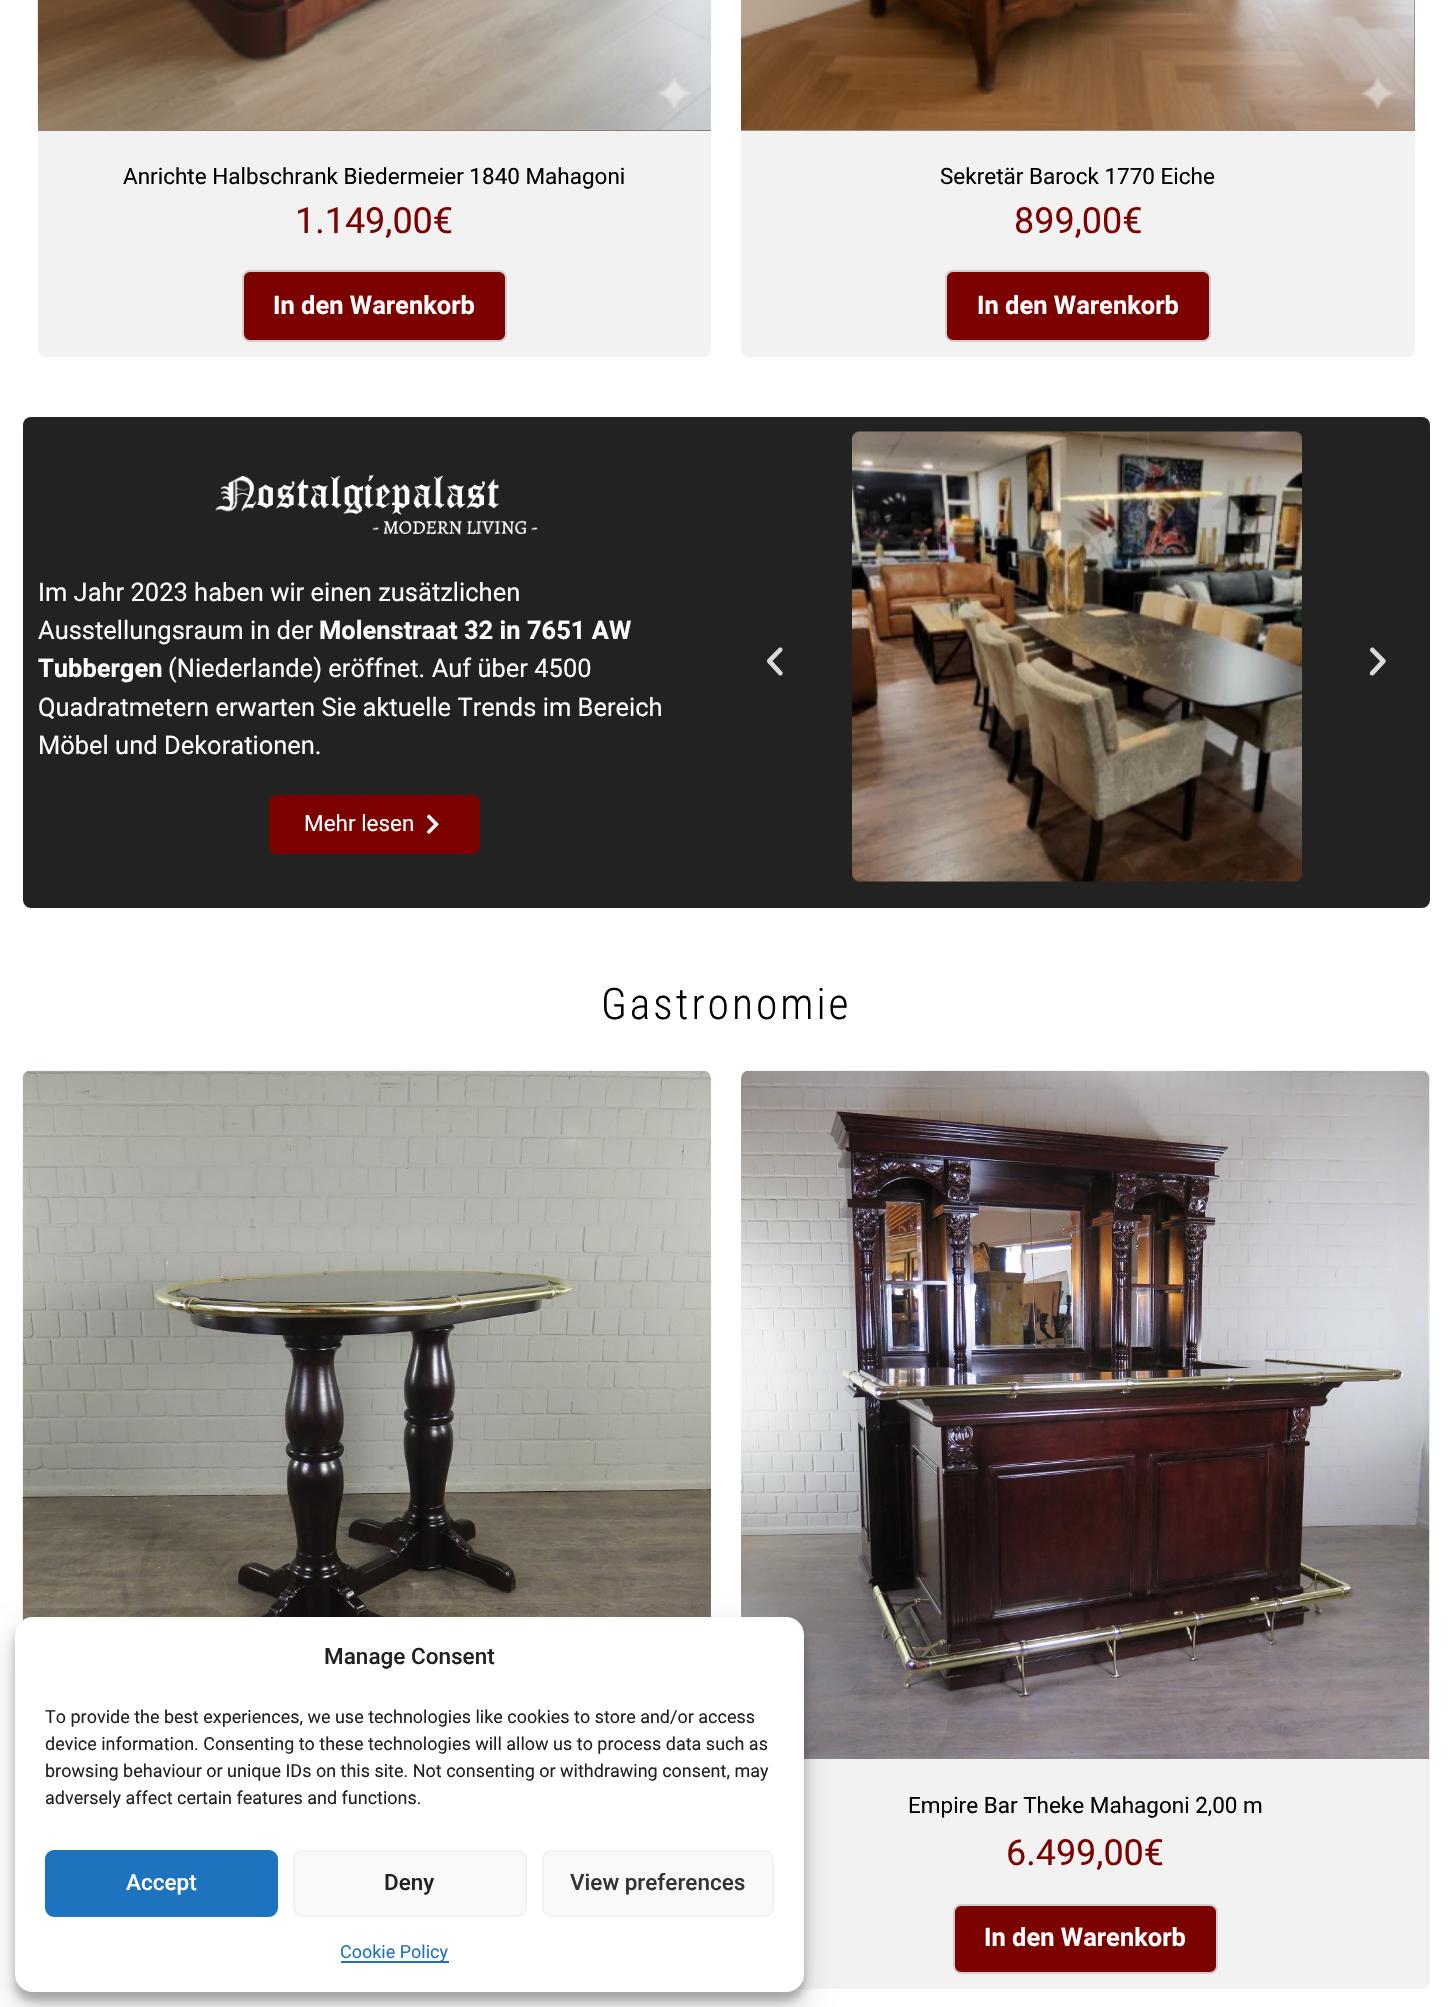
void draw(SkCanvas* canvas) {
	SkPaint paint;
	paint.setAntiAlias(true);
	auto spacedText = [&](const char* s, float x, float y, const SkFont& font, const SkPaint& ink, float letter, float word) {
		std::vector<SkGlyphID> glyphs(font.countText(s, strlen(s), SkTextEncoding::kUTF8));
		std::vector<float> xs(glyphs.size());
		font.textToGlyphs(s, strlen(s), SkTextEncoding::kUTF8, glyphs);
		font.getXPos(glyphs, xs, x);
		float extra = 0;
		for (size_t i = 0; i < glyphs.size(); i++) {
			xs[i] += extra;
			extra += letter + word * (glyphs[i] == font.unicharToGlyph(' '));
		}
		canvas->drawTextBlob(SkTextBlob::MakeFromPosHGlyphs(glyphs, xs, y, font), 0, 0, ink);
	};
	canvas->clear(0xffffffff);
	paint.setColor(0xfff2f2f2);
	canvas->drawRoundRect(SkRect::MakeXYWH(38, -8, 673, 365), 8, 8, paint);
	canvas->drawImageRect(SkImages::DeferredFromEncodedData(SkData::MakeFromFileName("img1.png")), SkRect::MakeXYWH(37, 0, 674, 130), SkSamplingOptions());
	paint.setColor(0xff907e72);
	canvas->drawRect(SkRect::MakeXYWH(38, 130, 673, 1), paint);
	SkFont f1(fontMgr->matchFamilyStyle("Roboto", SkFontStyle::Normal()), 22.5);
	f1.setSubpixel(true);
	paint.setColor(0xff000000);
	canvas->drawString("Anrichte Halbschrank Biedermeier 1840 Mahagoni", 123, 184, f1, paint);
	SkFont f2(fontMgr->matchFamilyStyle("Roboto", SkFontStyle::Normal()), 36);
	f2.setSubpixel(true);
	paint.setColor(0xff7c0200);
	canvas->drawString("1.149,00€", 295, 233, f2, paint);
	canvas->drawRoundRect(SkRect::MakeXYWH(243, 271, 263, 70), 7, 7, paint);
	paint.setStroke(true);
	paint.setStrokeWidth(2);
	paint.setColor(0xffcfcfcf);
	canvas->drawRoundRect(SkRect::MakeXYWH(243, 271, 263, 70), 7, 7, paint);
	SkFont f3(fontMgr->matchFamilyStyle("Roboto", SkFontStyle::Bold()), 25.5);
	f3.setSubpixel(true);
	paint.setStroke(false);
	paint.setColor(0xffffffff);
	canvas->drawString("In den Warenkorb", 273, 314, f3, paint);
	paint.setColor(0xfff2f2f2);
	canvas->drawRoundRect(SkRect::MakeXYWH(741, -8, 674, 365), 8, 8, paint);
	paint.setColor(0xff9c8776);
	canvas->drawRect(SkRect::MakeXYWH(741, 0, 674, 131), paint);
	canvas->drawImageRect(SkImages::DeferredFromEncodedData(SkData::MakeFromFileName("img2.png")), SkRect::MakeXYWH(741, 0, 674, 130), SkSamplingOptions());
	paint.setColor(0xff000000);
	canvas->drawString("Sekretär Barock 1770 Eiche", 940, 184, f1, paint);
	paint.setColor(0xff7c0200);
	canvas->drawString("899,00€", 1014, 233, f2, paint);
	canvas->drawRoundRect(SkRect::MakeXYWH(946, 271, 264, 70), 7, 7, paint);
	paint.setStroke(true);
	paint.setColor(0xffcfcfcf);
	canvas->drawRoundRect(SkRect::MakeXYWH(946, 271, 264, 70), 7, 7, paint);
	paint.setStroke(false);
	paint.setColor(0xffffffff);
	canvas->drawString("In den Warenkorb", 977, 314, f3, paint);
	paint.setColor(0xff222222);
	canvas->drawRoundRect(SkRect::MakeXYWH(23, 417, 1407, 491), 8, 8, paint);
	canvas->drawImageRect(SkImages::DeferredFromEncodedData(SkData::MakeFromFileName("img3.png")), SkRect::MakeXYWH(215, 475, 323, 60), SkSamplingOptions());
	SkFont f4(fontMgr->matchFamilyStyle("Roboto", SkFontStyle::Normal()), 25.5);
	f4.setSubpixel(true);
	paint.setColor(0xffffffff);
	canvas->drawString("Im Jahr 2023 haben wir einen zusätzlichen", 38, 601, f4, paint);
	canvas->drawString("Ausstellungsraum in der", 38, 639, f4, paint);
	canvas->drawString("Molenstraat 32 in 7651 AW", 319, 639, f3, paint);
	canvas->drawString("Tubbergen", 38, 677, f3, paint);
	canvas->drawString("(Niederlande) eröffnet. Auf über 4500", 168, 677, f4, paint);
	canvas->drawString("Quadratmetern erwarten Sie aktuelle Trends im Bereich", 38, 716, f4, paint);
	canvas->drawString("Möbel und Dekorationen.", 38, 754, f4, paint);
	paint.setColor(0xff7c0200);
	canvas->drawRoundRect(SkRect::MakeXYWH(269, 795, 211, 59), 8, 8, paint);
	paint.setColor(0xffffffff);
	canvas->drawString("Mehr lesen", 304, 831, f1, paint);
	canvas->drawImageRect(SkImages::DeferredFromEncodedData(SkData::MakeFromFileName("img4.png")), SkRect::MakeXYWH(426, 814, 13, 20), SkSamplingOptions());
	canvas->drawImageRect(SkImages::DeferredFromEncodedData(SkData::MakeFromFileName("img5.png")), SkRect::MakeXYWH(767, 647, 16, 29), SkSamplingOptions());
	canvas->drawImageRect(SkImages::DeferredFromEncodedData(SkData::MakeFromFileName("img6.png")), SkRect::MakeXYWH(852, 431, 450, 451), SkSamplingOptions());
	canvas->drawImageRect(SkImages::DeferredFromEncodedData(SkData::MakeFromFileName("img7.png")), SkRect::MakeXYWH(1369, 647, 17, 29), SkSamplingOptions());
	SkFont f5(fontMgr->matchFamilyStyle("Roboto Condensed", SkFontStyle(300, SkFontStyle::kNormal_Width, SkFontStyle::kUpright_Slant)), 43.5);
	f5.setSubpixel(true);
	paint.setColor(0xff000000);
	spacedText("Gastronomie", 601, 1019, f5, paint, 3, 0);
	paint.setColor(0xfff2f2f2);
	canvas->drawRoundRect(SkRect::MakeXYWH(23, 1071, 688, 918), 8, 8, paint);
	canvas->drawImageRect(SkImages::DeferredFromEncodedData(SkData::MakeFromFileName("img8.png")), SkRect::MakeXYWH(22, 1070, 689, 551), SkSamplingOptions());
	canvas->drawRoundRect(SkRect::MakeXYWH(741, 1071, 689, 918), 8, 8, paint);
	canvas->drawImageRect(SkImages::DeferredFromEncodedData(SkData::MakeFromFileName("img9.png")), SkRect::MakeXYWH(741, 1070, 689, 689), SkSamplingOptions());
	paint.setColor(0xff000000);
	canvas->drawString("Empire Bar Theke Mahagoni 2,00 m", 908, 1813, f1, paint);
	paint.setColor(0xff7c0200);
	canvas->drawString("6.499,00€", 1006, 1865, f2, paint);
	canvas->drawRoundRect(SkRect::MakeXYWH(954, 1905, 263, 68), 7, 7, paint);
	paint.setStroke(true);
	paint.setColor(0xffcfcfcf);
	canvas->drawRoundRect(SkRect::MakeXYWH(954, 1905, 263, 68), 7, 7, paint);
	paint.setStroke(false);
	paint.setColor(0xffffffff);
	canvas->drawString("In den Warenkorb", 984, 1946, f3, paint);
	paint.setColor(0x3b000000);
	paint.setMaskFilter(SkMaskFilter::MakeBlur(kNormal_SkBlurStyle, 4.5));
	canvas->drawRoundRect(SkRect::MakeXYWH(15, 1626, 789, 375), 18, 18, paint);
	paint.setMaskFilter(nullptr);
	paint.setColor(0x30000000);
	paint.setMaskFilter(SkMaskFilter::MakeBlur(kNormal_SkBlurStyle, 15));
	canvas->drawRoundRect(SkRect::MakeXYWH(15, 1632, 789, 375), 18, 18, paint);
	paint.setMaskFilter(nullptr);
	paint.setColor(0xffffffff);
	canvas->drawRoundRect(SkRect::MakeXYWH(15, 1617, 789, 375), 18, 18, paint);
	SkFont f6(fontMgr->matchFamilyStyle("Roboto", SkFontStyle(500, SkFontStyle::kNormal_Width, SkFontStyle::kUpright_Slant)), 22.5);
	f6.setSubpixel(true);
	paint.setColor(0xff222222);
	canvas->drawString("Manage Consent", 324, 1664, f6, paint);
	SkFont f7(fontMgr->matchFamilyStyle("Roboto", SkFontStyle::Normal()), 18);
	f7.setSubpixel(true);
	canvas->drawString("To provide the best experiences, we use technologies like cookies to store and/or access", 45, 1723, f7, paint);
	canvas->drawString("device information. Consenting to these technologies will allow us to process data such as", 45, 1750, f7, paint);
	canvas->drawString("browsing behaviour or unique IDs on this site. Not consenting or withdrawing consent, may", 45, 1777, f7, paint);
	canvas->drawString("adversely affect certain features and functions.", 45, 1804, f7, paint);
	paint.setColor(0xff1e73be);
	canvas->drawRoundRect(SkRect::MakeXYWH(46, 1851, 231, 65), 8, 8, paint);
	paint.setStroke(true);
	canvas->drawRoundRect(SkRect::MakeXYWH(46, 1851, 231, 65), 8, 8, paint);
	paint.setStroke(false);
	paint.setColor(0xffffffff);
	canvas->drawString("Accept", 126, 1890, f6, paint);
	paint.setColor(0xfff9f9f9);
	canvas->drawRoundRect(SkRect::MakeXYWH(294, 1851, 232, 65), 8, 8, paint);
	paint.setStroke(true);
	paint.setColor(0xfff2f2f2);
	canvas->drawRoundRect(SkRect::MakeXYWH(294, 1851, 232, 65), 8, 8, paint);
	paint.setStroke(false);
	paint.setColor(0xff222222);
	canvas->drawString("Deny", 384, 1890, f6, paint);
	paint.setColor(0xfff9f9f9);
	canvas->drawRoundRect(SkRect::MakeXYWH(543, 1851, 230, 65), 8, 8, paint);
	paint.setStroke(true);
	paint.setColor(0xfff2f2f2);
	canvas->drawRoundRect(SkRect::MakeXYWH(543, 1851, 230, 65), 8, 8, paint);
	paint.setStroke(false);
	paint.setColor(0xff333333);
	canvas->drawString("View preferences", 570, 1890, f6, paint);
	paint.setColor(0xff1e73be);
	canvas->drawRect(SkRect::MakeXYWH(341, 1961, 108, 2), paint);
	canvas->drawString("Cookie Policy", 340, 1958, f7, paint);
}
